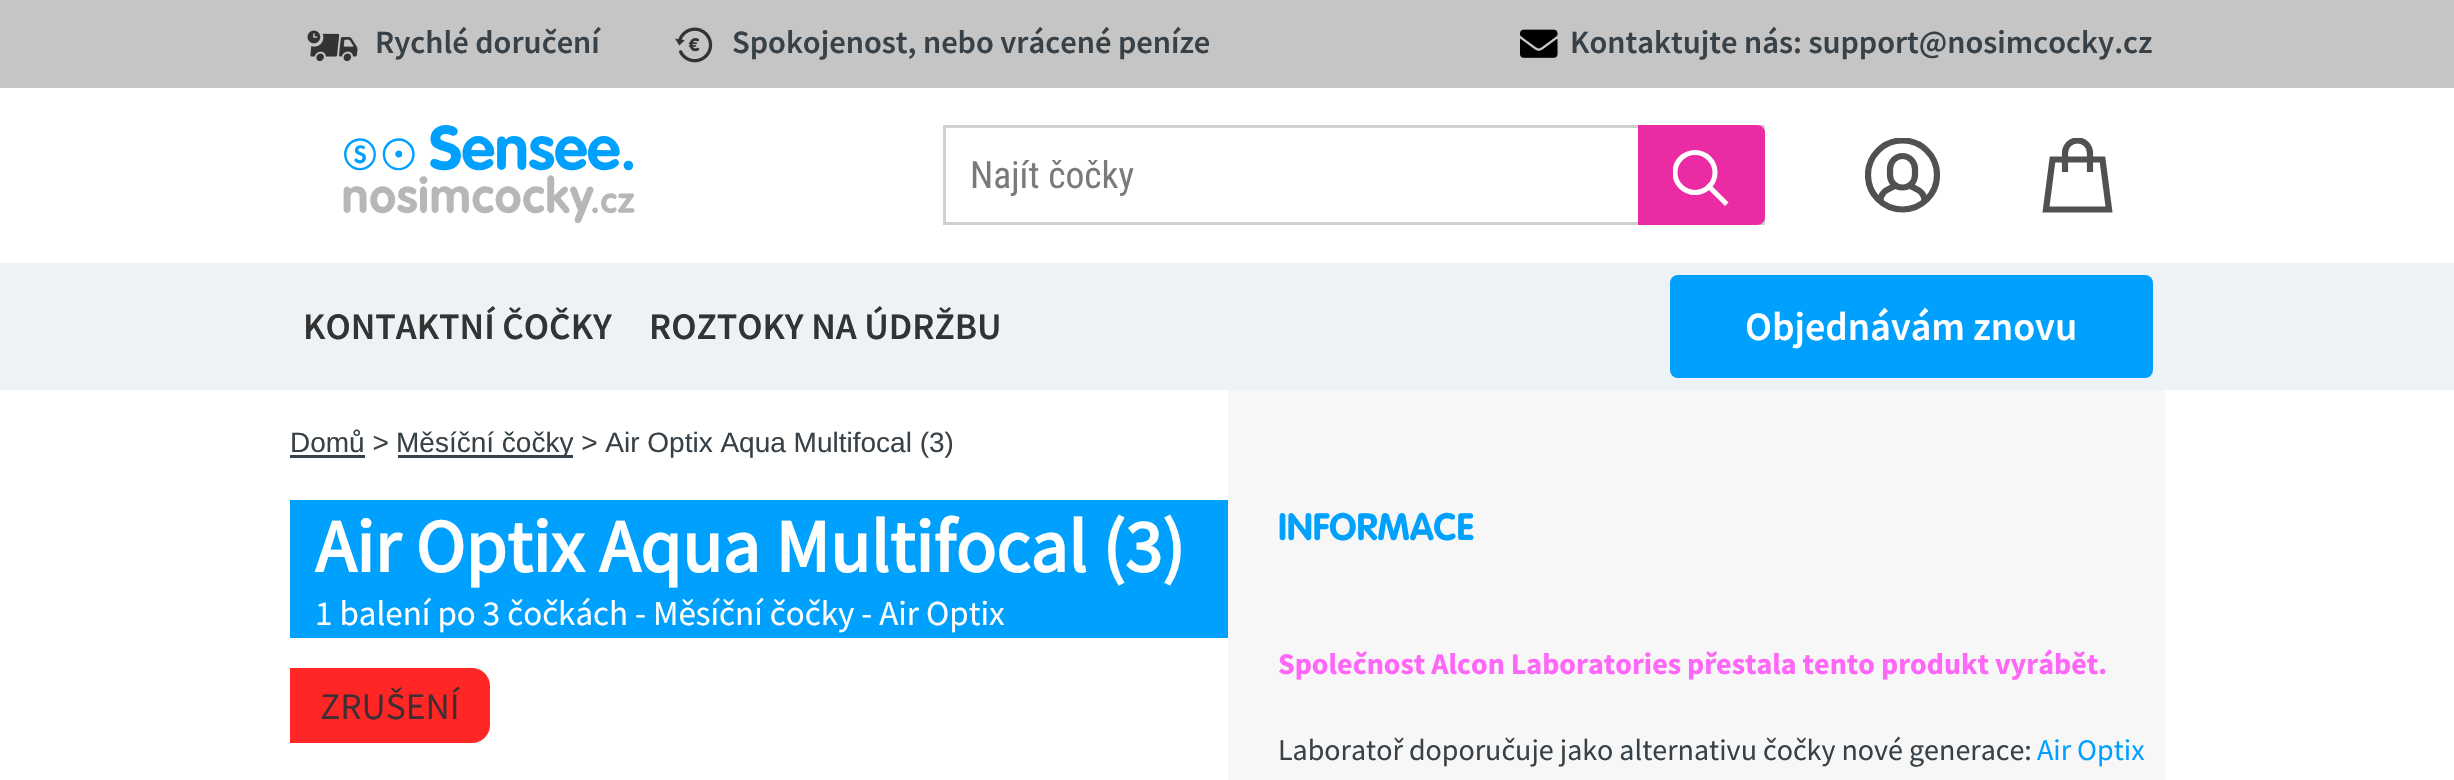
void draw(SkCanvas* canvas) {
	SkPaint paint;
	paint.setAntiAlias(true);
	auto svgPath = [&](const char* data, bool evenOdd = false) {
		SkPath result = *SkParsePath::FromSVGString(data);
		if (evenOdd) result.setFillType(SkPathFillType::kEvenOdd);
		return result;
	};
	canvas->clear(0xffffffff);
	paint.setColor(0xffc5c5c5);
	canvas->drawRect(SkRect::MakeXYWH(0, 0, 2454, 88), paint);
	canvas->drawImageRect(SkImages::DeferredFromEncodedData(SkData::MakeFromFileName("img1.png")), SkRect::MakeXYWH(307, 30, 51, 32), SkSamplingOptions());
	SkFont f1(fontMgr->matchFamilyStyle("Source Sans Pro", SkFontStyle(600, SkFontStyle::kNormal_Width, SkFontStyle::kUpright_Slant)), 32.5);
	f1.setSubpixel(true);
	paint.setColor(0xff384147);
	canvas->drawString("Rychlé doručení", 375, 53, f1, paint);
	canvas->drawImageRect(SkImages::DeferredFromEncodedData(SkData::MakeFromFileName("img2.png")), SkRect::MakeXYWH(675, 27, 38, 36), SkSamplingOptions());
	canvas->drawString("Spokojenost, nebo vrácené peníze", 732, 53, f1, paint);
	canvas->drawImageRect(SkImages::DeferredFromEncodedData(SkData::MakeFromFileName("img3.png")), SkRect::MakeXYWH(1520, 29, 38, 29), SkSamplingOptions());
	canvas->drawString("Kontaktujte nás: support@nosimcocky.cz", 1570, 53, f1, paint);
	paint.setColor(0xffecf2f6);
	canvas->drawRect(SkRect::MakeXYWH(0, 263, 2454, 127), paint);
	canvas->drawImageRect(SkImages::DeferredFromEncodedData(SkData::MakeFromFileName("img4.png")), SkRect::MakeXYWH(343, 125, 292, 99), SkSamplingOptions());
	paint.setStroke(true);
	paint.setStrokeWidth(3);
	paint.setColor(0xffd0d0d0);
	canvas->drawRect(SkRect::MakeXYWH(944.5, 126.5, 819, 97), paint);
	SkFont f2(fontMgr->matchFamilyStyle("Roboto Condensed", SkFontStyle::Normal()), 37.5);
	f2.setSubpixel(true);
	paint.setStroke(false);
	paint.setColor(0xff7a7a7a);
	canvas->drawString("Najít čočky", 970, 188, f2, paint);
	paint.setColor(0xffeb2ba4);
	canvas->drawPath(svgPath("M1638 125H1757C1761.5 125 1765 128.5 1765 133V217C1765 221.5 1761.5 225 1757 225H1638Z"), paint);
	paint.setStroke(true);
	paint.setStrokeWidth(5);
	paint.setStrokeCap(SkPaint::kSquare_Cap);
	paint.setColor(0xffffffff);
	canvas->drawPath(svgPath("M1725 202.5L1709 186.5"), paint);
	canvas->save();
	canvas->clipRect(SkRect::MakeXYWH(1673, 150, 57, 58));
	paint.setStrokeCap(SkPaint::kButt_Cap);
	canvas->drawCircle(1695, 172.5, 20, paint);
	canvas->restore();
	paint.setStrokeWidth(6.2);
	paint.setColor(0xff515151);
	canvas->drawPath(svgPath("M1924.5 201.5C1924.5 191 1917.5 190 1909.5 185.5M1895.5 185.5C1887.5 190 1880.5 191 1880.5 201.5"), paint);
	paint.setStrokeCap(SkPaint::kSquare_Cap);
	canvas->drawPath(svgPath("M1902.5 187.5C1895.5 187.5 1890 182 1890 175V169C1890 162 1895.5 156 1902.5 156C1909.5 156 1915 162 1915 169V175C1915 182 1909.5 187.5 1902.5 187.5Z"), paint);
	canvas->save();
	canvas->clipRect(SkRect::MakeXYWH(1865, 138, 75, 75));
	paint.setStrokeCap(SkPaint::kButt_Cap);
	canvas->drawCircle(1902.5, 175, 34.5, paint);
	canvas->restore();
	paint.setStrokeCap(SkPaint::kSquare_Cap);
	canvas->drawPath(svgPath("M2109 209.5H2046L2052.5 159.5H2102.5Z"), paint);
	canvas->save();
	canvas->clipRect(SkRect::MakeXYWH(2040, 138, 75, 75));
	canvas->drawPath(svgPath("M2065 169V153C2065 146 2070.5 140.5 2077.5 140.5C2084.5 140.5 2090 146 2090 153V169"), paint);
	canvas->restore();
	SkFont f3(fontMgr->matchFamilyStyle("Source Sans Pro", SkFontStyle(600, SkFontStyle::kNormal_Width, SkFontStyle::kUpright_Slant)), 37.5);
	f3.setSubpixel(true);
	paint.setStroke(false);
	paint.setColor(0xff333333);
	canvas->drawString("KONTAKTNÍ ČOČKY", 303, 339, f3, paint);
	canvas->drawString("ROZTOKY NA ÚDRŽBU", 649, 339, f3, paint);
	paint.setColor(0xff00a0ff);
	canvas->drawRoundRect(SkRect::MakeXYWH(1670, 275, 483, 103), 8, 8, paint);
	SkFont f4(fontMgr->matchFamilyStyle("Source Sans Pro", SkFontStyle(600, SkFontStyle::kNormal_Width, SkFontStyle::kUpright_Slant)), 40);
	f4.setSubpixel(true);
	paint.setColor(0xffffffff);
	canvas->drawString("Objednávám znovu", 1745, 340, f4, paint);
	SkFont f5(fontMgr->matchFamilyStyle("Liberation Sans", SkFontStyle::Normal()), 28);
	f5.setSubpixel(true);
	paint.setColor(0xff384147);
	canvas->drawString("Domů >", 290, 452, f5, paint);
	canvas->drawRect(SkRect::MakeXYWH(290, 455, 75, 3), paint);
	canvas->drawRect(SkRect::MakeXYWH(398, 455, 175, 3), paint);
	canvas->drawString("Měsíční čočky > Air Optix Aqua Multifocal (3)", 396, 452, f5, paint);
	paint.setColor(0xff00a0ff);
	canvas->drawRect(SkRect::MakeXYWH(290, 500, 938, 138), paint);
	SkFont f6(fontMgr->matchFamilyStyle("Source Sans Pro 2", SkFontStyle::Bold()), 75);
	f6.setSubpixel(true);
	paint.setColor(0xffffffff);
	canvas->drawString("Air Optix Aqua Multifocal (3)", 315, 572, f6, paint);
	SkFont f7(fontMgr->matchFamilyStyle("Source Sans Pro", SkFontStyle::Normal()), 35);
	f7.setSubpixel(true);
	canvas->drawString("1 balení po 3 čočkách - Měsíční čočky - Air Optix", 315, 625, f7, paint);
	paint.setColor(0xffff2625);
	canvas->drawPath(svgPath("M290 668H472C482 668 490 676 490 686V725C490 735 482 743 472 743H290Z"), paint);
	SkFont f8(fontMgr->matchFamilyStyle("Source Sans Pro", SkFontStyle::Normal()), 37.5);
	f8.setSubpixel(true);
	paint.setColor(0xff3f2e34);
	canvas->drawString("ZRUŠENÍ", 320, 719, f8, paint);
	paint.setColor(0xfff7f7f7);
	canvas->drawRect(SkRect::MakeXYWH(1228, 390, 937, 390), paint);
	SkFont f9(fontMgr->matchFamilyStyle("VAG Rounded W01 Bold", SkFontStyle::Bold()), 37.5);
	f9.setSubpixel(true);
	paint.setColor(0xff00a0ff);
	canvas->drawString("INFORMACE", 1278, 540, f9, paint);
	SkFont f10(fontMgr->matchFamilyStyle("Source Sans Pro", SkFontStyle::Bold()), 30);
	f10.setSubpixel(true);
	paint.setColor(0xfffe67f8);
	canvas->drawString("Společnost Alcon Laboratories přestala tento produkt vyrábět.", 1278, 674, f10, paint);
	SkFont f11(fontMgr->matchFamilyStyle("Source Sans Pro", SkFontStyle::Normal()), 30);
	f11.setSubpixel(true);
	paint.setColor(0xff384147);
	canvas->drawString("Laboratoř doporučuje jako alternativu čočky nové generace:", 1278, 760, f11, paint);
	paint.setColor(0xff00a0ff);
	canvas->drawString("Air Optix", 2037, 760, f11, paint);
}
